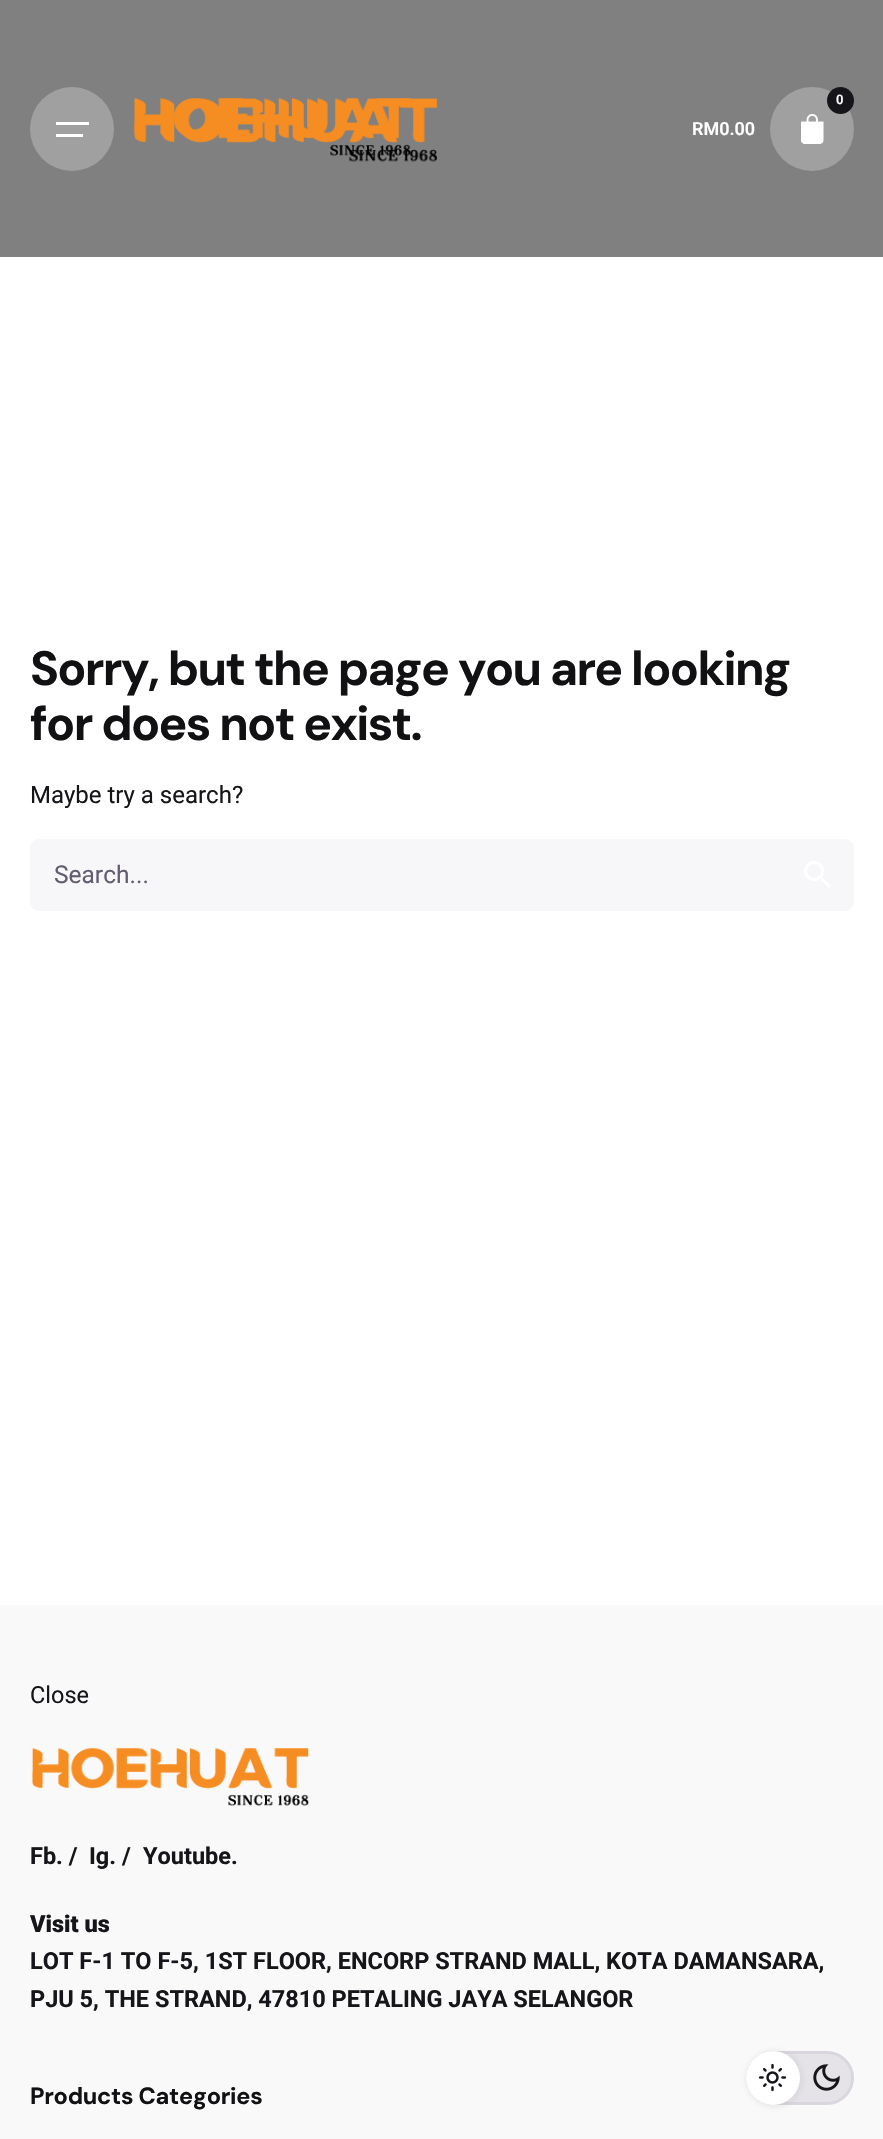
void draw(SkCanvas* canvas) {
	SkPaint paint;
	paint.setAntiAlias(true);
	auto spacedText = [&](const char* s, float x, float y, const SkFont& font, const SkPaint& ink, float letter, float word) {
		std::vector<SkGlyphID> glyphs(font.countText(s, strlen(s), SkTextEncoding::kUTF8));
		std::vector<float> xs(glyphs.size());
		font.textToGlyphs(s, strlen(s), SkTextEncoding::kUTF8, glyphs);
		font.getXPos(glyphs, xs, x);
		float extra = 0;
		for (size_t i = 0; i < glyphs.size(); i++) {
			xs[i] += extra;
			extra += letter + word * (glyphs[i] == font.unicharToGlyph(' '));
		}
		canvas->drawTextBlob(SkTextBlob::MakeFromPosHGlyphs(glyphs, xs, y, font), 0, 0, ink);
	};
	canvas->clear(0xffffffff);
	paint.setColor(0xff808080);
	canvas->drawRect(SkRect::MakeXYWH(0, 0, 883, 257), paint);
	paint.setColor(0xffa0a0a0);
	canvas->drawCircle(72, 129, 42, paint);
	paint.setColor(0xffffffff);
	canvas->drawRect(SkRect::MakeXYWH(56, 122, 33, 3), paint);
	canvas->drawRect(SkRect::MakeXYWH(56, 134, 27, 3), paint);
	canvas->drawImageRect(SkImages::DeferredFromEncodedData(SkData::MakeFromFileName("img1.png")), SkRect::MakeXYWH(134, 98, 303, 64), SkSamplingOptions());
	canvas->drawImageRect(SkImages::DeferredFromEncodedData(SkData::MakeFromFileName("img2.png")), SkRect::MakeXYWH(134, 98, 277, 58), SkSamplingOptions());
	paint.setColor(0xffa0a0a0);
	canvas->drawCircle(812, 129, 42, paint);
	canvas->drawImageRect(SkImages::DeferredFromEncodedData(SkData::MakeFromFileName("img3.png")), SkRect::MakeXYWH(801, 114, 23, 30), SkSamplingOptions());
	paint.setColor(0xff161519);
	canvas->drawCircle(840.5, 100.5, 13.5, paint);
	SkFont f1(fontMgr->matchFamilyStyle("Roboto", SkFontStyle(600, SkFontStyle::kNormal_Width, SkFontStyle::kUpright_Slant)), 13);
	f1.setSubpixel(true);
	paint.setColor(0xffffffff);
	canvas->drawString("0", 836, 104, f1, paint);
	SkFont f2(fontMgr->matchFamilyStyle("Roboto", SkFontStyle(600, SkFontStyle::kNormal_Width, SkFontStyle::kUpright_Slant)), 18);
	f2.setSubpixel(true);
	canvas->drawString("RM0.00", 692, 135, f2, paint);
	SkFont f3(fontMgr->matchFamilyStyle("DM Sans", SkFontStyle::Bold()), 48);
	f3.setSubpixel(true);
	paint.setColor(0xff111013);
	spacedText("Sorry, but the page you are looking", 30, 685, f3, paint, -1.7, 0);
	spacedText("for does not exist.", 30, 740, f3, paint, -1.7, 0);
	SkFont f4(fontMgr->matchFamilyStyle("Roboto", SkFontStyle::Normal()), 24);
	f4.setSubpixel(true);
	paint.setColor(0xff161519);
	canvas->drawString("Maybe try a search?", 30, 803, f4, paint);
	paint.setColor(0xfff7f6f8);
	canvas->drawRoundRect(SkRect::MakeXYWH(30, 839, 824, 72), 9, 9, paint);
	SkFont f5(fontMgr->matchFamilyStyle("Roboto", SkFontStyle::Normal()), 24.5);
	f5.setSubpixel(true);
	paint.setColor(0xff635d6f);
	canvas->drawString("Search...", 54, 883, f5, paint);
	canvas->drawImageRect(SkImages::DeferredFromEncodedData(SkData::MakeFromFileName("img4.png")), SkRect::MakeXYWH(804, 861, 27, 27), SkSamplingOptions());
	paint.setColor(0xfffaf9fa);
	canvas->drawRect(SkRect::MakeXYWH(0, 1605, 883, 534), paint);
	SkFont f6(fontMgr->matchFamilyStyle("Roboto", SkFontStyle::Normal()), 23.5);
	f6.setSubpixel(true);
	paint.setColor(0xff161519);
	canvas->drawString("Close", 30, 1703, f6, paint);
	canvas->drawImageRect(SkImages::DeferredFromEncodedData(SkData::MakeFromFileName("img5.png")), SkRect::MakeXYWH(31, 1748, 278, 58), SkSamplingOptions());
	SkFont f7(fontMgr->matchFamilyStyle("Roboto", SkFontStyle::Bold()), 23.5);
	f7.setSubpixel(true);
	canvas->drawString("Fb. /", 30, 1864, f7, paint);
	canvas->drawString("Ig. /", 89, 1864, f7, paint);
	canvas->drawString("Youtube.", 143, 1864, f7, paint);
	SkFont f8(fontMgr->matchFamilyStyle("Roboto", SkFontStyle(900, SkFontStyle::kNormal_Width, SkFontStyle::kUpright_Slant)), 23.5);
	f8.setSubpixel(true);
	canvas->drawString("Visit us", 30, 1932, f8, paint);
	canvas->drawString("LOT F-1 TO F-5, 1ST FLOOR, ENCORP STRAND MALL, KOTA DAMANSARA,", 30, 1969, f7, paint);
	canvas->drawString("PJU 5, THE STRAND, 47810 PETALING JAYA SELANGOR", 30, 2007, f7, paint);
	SkFont f9(fontMgr->matchFamilyStyle("DM Sans", SkFontStyle::Bold()), 23.5);
	f9.setSubpixel(true);
	paint.setColor(0xff111013);
	spacedText("Products Categories", 30, 2104, f9, paint, -0.25, 0);
	paint.setColor(0xffe5e3e8);
	canvas->drawRoundRect(SkRect::MakeXYWH(746, 2051, 108, 54), 27, 27, paint);
	paint.setStroke(true);
	paint.setStrokeWidth(3);
	paint.setColor(0x269690a2);
	canvas->drawRoundRect(SkRect::MakeXYWH(747.5, 2052.5, 105, 51), 25.5, 25.5, paint);
	canvas->drawImageRect(SkImages::DeferredFromEncodedData(SkData::MakeFromFileName("img7.png")), SkRect::MakeXYWH(813, 2064, 27, 27), SkSamplingOptions());
	paint.setStroke(false);
	paint.setColor(0x0d111013);
	paint.setMaskFilter(SkMaskFilter::MakeBlur(kNormal_SkBlurStyle, 4.5));
	canvas->drawRoundRect(SkRect::MakeXYWH(747, 2052, 54, 54), 27, 27, paint);
	paint.setMaskFilter(nullptr);
	paint.setMaskFilter(SkMaskFilter::MakeBlur(kNormal_SkBlurStyle, 4.5));
	canvas->drawRoundRect(SkRect::MakeXYWH(747, 2052, 54, 54), 27, 27, paint);
	paint.setMaskFilter(nullptr);
	paint.setColor(0xffffffff);
	canvas->drawCircle(773, 2078, 27, paint);
	canvas->drawImageRect(SkImages::DeferredFromEncodedData(SkData::MakeFromFileName("img6.png")), SkRect::MakeXYWH(758, 2063, 29, 29), SkSamplingOptions());
}
